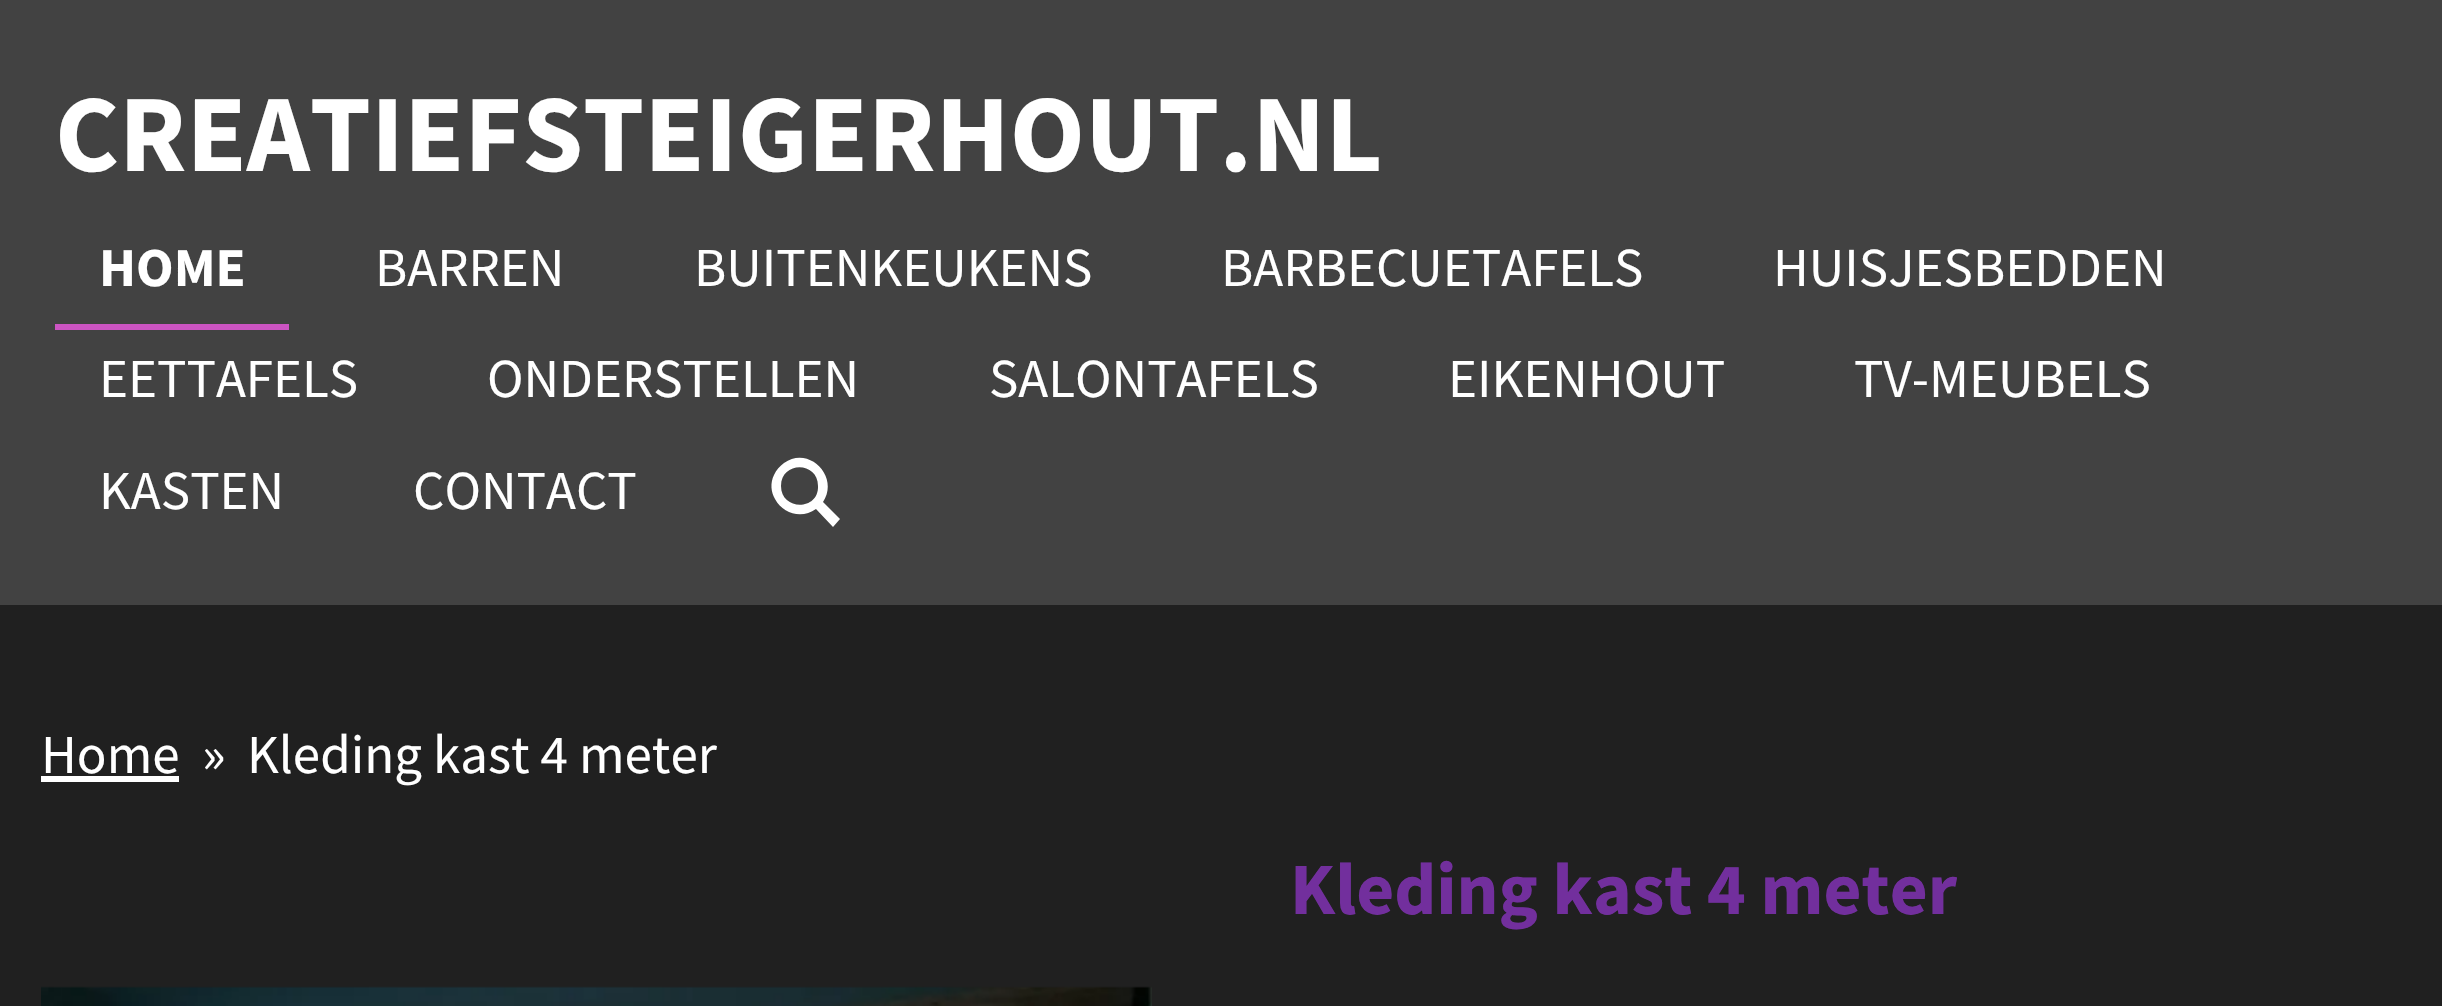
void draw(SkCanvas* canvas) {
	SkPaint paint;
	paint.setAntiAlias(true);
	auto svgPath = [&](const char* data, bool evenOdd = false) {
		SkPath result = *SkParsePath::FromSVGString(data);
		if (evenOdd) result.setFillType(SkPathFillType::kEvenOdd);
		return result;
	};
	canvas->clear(0xff424242);
	SkFont f1(fontMgr->matchFamilyStyle("Source Sans Pro", SkFontStyle::Bold()), 110);
	f1.setSubpixel(true);
	paint.setColor(0xffffffff);
	canvas->drawString("CREATIEFSTEIGERHOUT.NL", 55, 171, f1, paint);
	paint.setColor(0xffcc54c2);
	canvas->drawPath(svgPath("M55 324V330H289V217V324Z"), paint);
	SkFont f2(fontMgr->matchFamilyStyle("Source Sans Pro", SkFontStyle::Bold()), 55);
	f2.setSubpixel(true);
	paint.setColor(0xffffffff);
	canvas->drawString("HOME", 99, 286, f2, paint);
	SkFont f3(fontMgr->matchFamilyStyle("Source Sans Pro", SkFontStyle::Normal()), 55);
	f3.setSubpixel(true);
	canvas->drawString("BARREN", 375, 286, f3, paint);
	canvas->drawString("BUITENKEUKENS", 694, 286, f3, paint);
	canvas->drawString("BARBECUETAFELS", 1221, 286, f3, paint);
	canvas->drawString("HUISJESBEDDEN", 1773, 286, f3, paint);
	canvas->drawString("EETTAFELS", 99, 397, f3, paint);
	canvas->drawString("ONDERSTELLEN", 487, 397, f3, paint);
	canvas->drawString("SALONTAFELS", 989, 397, f3, paint);
	canvas->drawString("EIKENHOUT", 1448, 397, f3, paint);
	canvas->drawString("TV-MEUBELS", 1854, 397, f3, paint);
	canvas->drawString("KASTEN", 99, 509, f3, paint);
	canvas->drawString("CONTACT", 413, 509, f3, paint);
	canvas->drawPath(svgPath("M823 502L840 519L833 527L816 509C802 519 783 514 775 499C771 492 770 483 774 475C776 470 780 466 784 463C809 445 840 477 823 502ZM818 486C818 461 781 461 781 486C781 511 819 511 818 486Z"), paint);
	paint.setColor(0xff202020);
	canvas->drawRect(SkRect::MakeXYWH(0, 605, 2442, 401), paint);
	paint.setColor(0xffffffff);
	canvas->drawString("Home", 41, 773, f3, paint);
	canvas->drawRect(SkRect::MakeXYWH(41, 776, 138, 6), paint);
	canvas->drawString("»", 202, 773, f3, paint);
	canvas->drawString("Kleding kast 4 meter", 247, 773, f3, paint);
	SkFont f4(fontMgr->matchFamilyStyle("Source Sans Pro", SkFontStyle::Bold()), 73.5);
	f4.setSubpixel(true);
	paint.setColor(0xff722f9d);
	canvas->drawString("Kleding kast 4 meter", 1290, 914, f4, paint);
	canvas->drawImageRect(SkImages::DeferredFromEncodedData(SkData::MakeFromFileName("img1.png")), SkRect::MakeXYWH(41, 986, 1111, 20), SkSamplingOptions());
}
